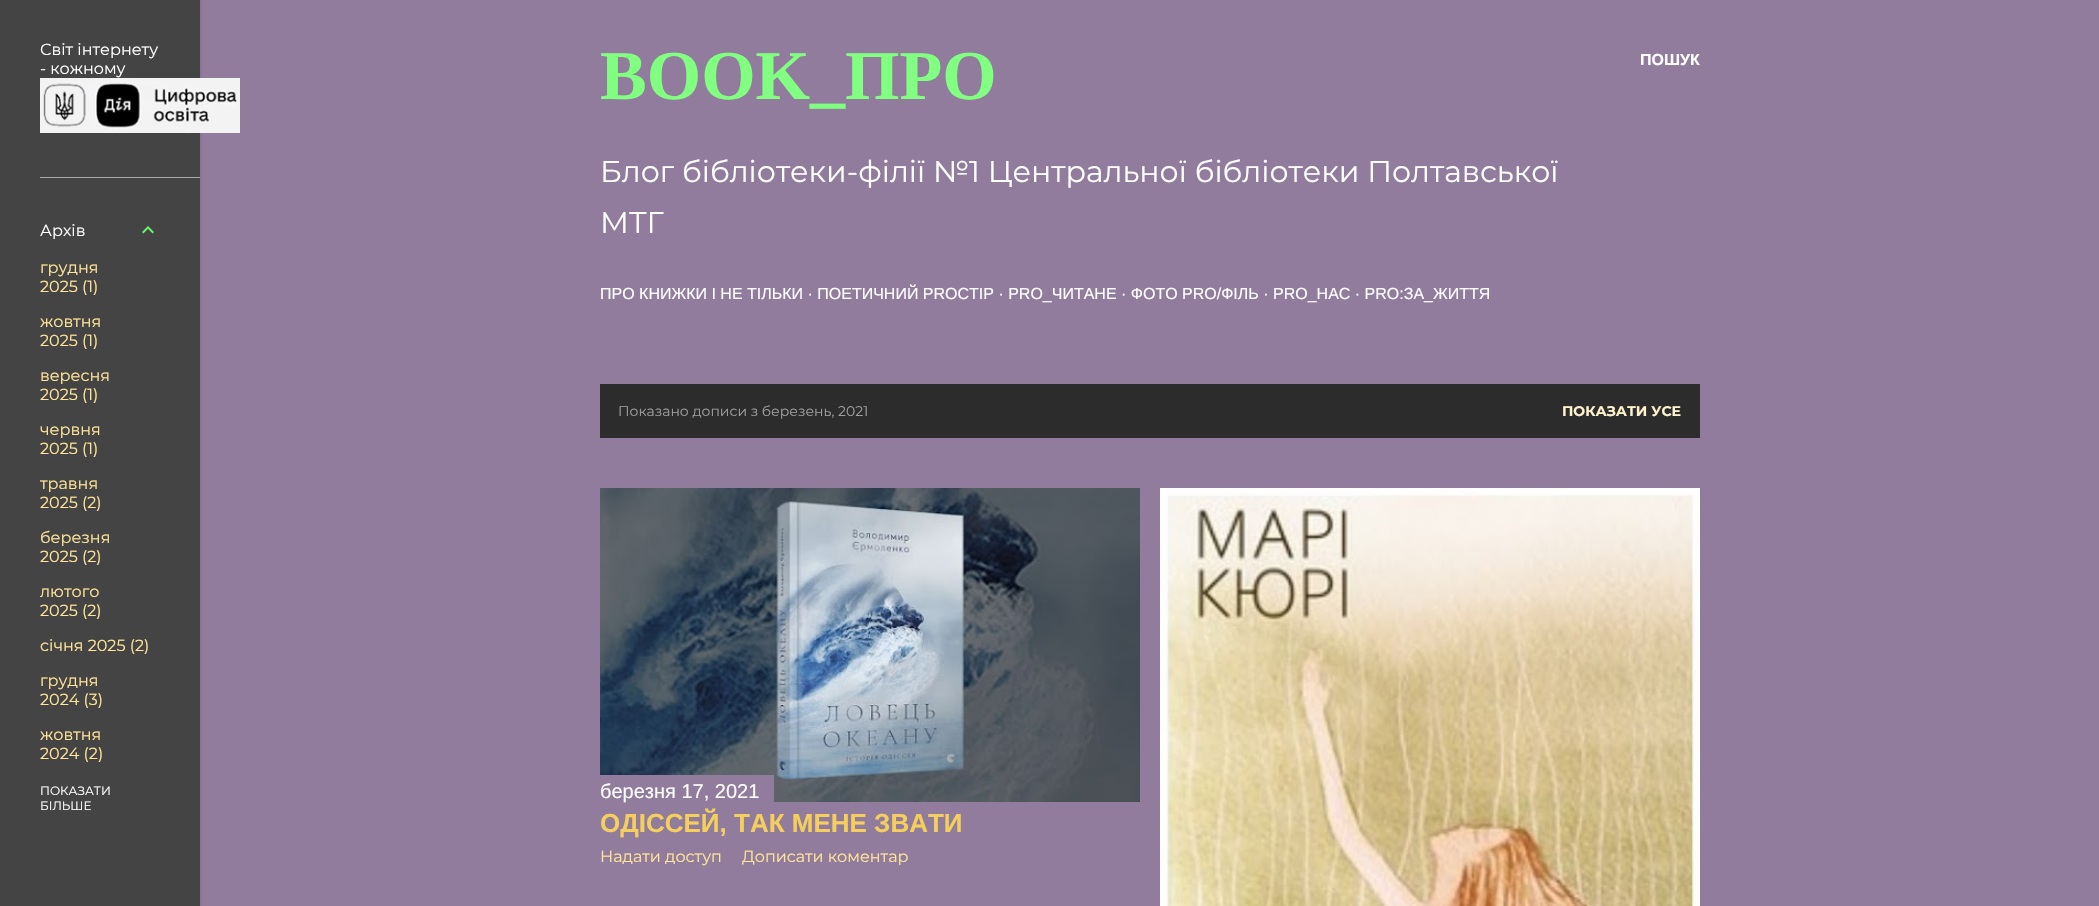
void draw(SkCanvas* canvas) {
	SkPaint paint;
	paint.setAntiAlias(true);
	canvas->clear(0xff927c9d);
	paint.setColor(0x1a000000);
	paint.setMaskFilter(SkMaskFilter::MakeBlur(kNormal_SkBlurStyle, 1.5));
	canvas->drawRect(SkRect::MakeXYWH(1, 0, 200, 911), paint);
	paint.setMaskFilter(nullptr);
	paint.setColor(0xff444444);
	canvas->drawRect(SkRect::MakeXYWH(0, 0, 200, 906), paint);
	SkFont f1(fontMgr->matchFamilyStyle("Montserrat", SkFontStyle::Normal()), 16);
	f1.setSubpixel(true);
	paint.setColor(0xffffffff);
	canvas->drawString("Світ інтернету", 40, 55, f1, paint);
	canvas->drawString("- кожному", 40, 74, f1, paint);
	canvas->drawImageRect(SkImages::DeferredFromEncodedData(SkData::MakeFromFileName("img1.png")), SkRect::MakeXYWH(40, 78, 200, 55), SkSamplingOptions());
	paint.setColor(0xffa9a9a9);
	canvas->drawRect(SkRect::MakeXYWH(40, 177, 160, 1), paint);
	paint.setColor(0xffffffff);
	canvas->drawString("Архів", 40, 236, f1, paint);
	canvas->drawImageRect(SkImages::DeferredFromEncodedData(SkData::MakeFromFileName("img2.png")), SkRect::MakeXYWH(142, 226, 12, 8), SkSamplingOptions());
	paint.setColor(0xffffe599);
	canvas->drawString("грудня", 40, 273, f1, paint);
	canvas->drawString("2025 (1)", 40, 292, f1, paint);
	canvas->drawString("жовтня", 40, 327, f1, paint);
	canvas->drawString("2025 (1)", 40, 346, f1, paint);
	canvas->drawString("вересня", 40, 381, f1, paint);
	canvas->drawString("2025 (1)", 40, 400, f1, paint);
	canvas->drawString("червня", 40, 435, f1, paint);
	canvas->drawString("2025 (1)", 40, 454, f1, paint);
	canvas->drawString("травня", 40, 489, f1, paint);
	canvas->drawString("2025 (2)", 40, 508, f1, paint);
	canvas->drawString("березня", 40, 543, f1, paint);
	canvas->drawString("2025 (2)", 40, 562, f1, paint);
	canvas->drawString("лютого", 40, 597, f1, paint);
	canvas->drawString("2025 (2)", 40, 616, f1, paint);
	canvas->drawString("січня 2025 (2)", 40, 651, f1, paint);
	canvas->drawString("грудня", 40, 686, f1, paint);
	canvas->drawString("2024 (3)", 40, 705, f1, paint);
	canvas->drawString("жовтня", 40, 740, f1, paint);
	canvas->drawString("2024 (2)", 40, 759, f1, paint);
	SkFont f2(fontMgr->matchFamilyStyle("Montserrat", SkFontStyle::Normal()), 12);
	f2.setSubpixel(true);
	paint.setColor(0xffffffff);
	canvas->drawString("ПОКАЗАТИ", 40, 795, f2, paint);
	canvas->drawString("БІЛЬШЕ", 40, 810, f2, paint);
	SkFont f3(fontMgr->matchFamilyStyle("Liberation Serif", SkFontStyle::Bold()), 70);
	f3.setSubpixel(true);
	paint.setColor(0xff81ff81);
	canvas->drawString("BOOK_ПРО", 600, 99, f3, paint);
	SkFont f4(fontMgr->matchFamilyStyle("Montserrat", SkFontStyle::Normal()), 30);
	f4.setSubpixel(true);
	paint.setColor(0xffffffff);
	canvas->drawString("Блог бібліотеки-філії №1 Центральної бібліотеки Полтавської", 600, 182, f4, paint);
	canvas->drawString("МТГ", 600, 233, f4, paint);
	SkFont f5(fontMgr->matchFamilyStyle("Liberation Sans", SkFontStyle::Normal()), 16);
	f5.setSubpixel(true);
	canvas->drawString("ПРО КНИЖКИ І НЕ ТІЛЬКИ · ПОЕТИЧНИЙ PROСТІР · PRO_ЧИТАНЕ · ФОТО PRO/ФІЛЬ · PRO_НАС · PRO:ЗА_ЖИТТЯ", 600, 299, f5, paint);
	SkFont f6(fontMgr->matchFamilyStyle("Liberation Sans", SkFontStyle::Bold()), 16);
	f6.setSubpixel(true);
	canvas->drawString("ПОШУК", 1640, 65, f6, paint);
	paint.setColor(0xff2c2c2c);
	canvas->drawRect(SkRect::MakeXYWH(600, 384, 1100, 54), paint);
	SkFont f7(fontMgr->matchFamilyStyle("Montserrat", SkFontStyle::Normal()), 14);
	f7.setSubpixel(true);
	paint.setColor(0xff9e9e9e);
	canvas->drawString("Показано дописи з березень, 2021", 618, 416, f7, paint);
	SkFont f8(fontMgr->matchFamilyStyle("Montserrat", SkFontStyle::Bold()), 14);
	f8.setSubpixel(true);
	paint.setColor(0xfffff2cc);
	canvas->drawString("ПОКАЗАТИ УСЕ", 1562, 416, f8, paint);
	canvas->drawImageRect(SkImages::DeferredFromEncodedData(SkData::MakeFromFileName("img3.png")), SkRect::MakeXYWH(600, 488, 540, 314), SkSamplingOptions());
	paint.setColor(0xff927c9d);
	canvas->drawRect(SkRect::MakeXYWH(600, 775, 174, 27), paint);
	SkFont f9(fontMgr->matchFamilyStyle("Liberation Sans", SkFontStyle::Normal()), 20);
	f9.setSubpixel(true);
	paint.setColor(0xffffffff);
	canvas->drawString("березня 17, 2021", 600, 798, f9, paint);
	SkFont f10(fontMgr->matchFamilyStyle("Liberation Sans", SkFontStyle::Bold()), 26);
	f10.setSubpixel(true);
	paint.setColor(0xfff4cf5d);
	canvas->drawString("ОДІССЕЙ, ТАК МЕНЕ ЗВАТИ", 600, 832, f10, paint);
	paint.setColor(0xffffe599);
	canvas->drawString("Надати доступ", 600, 862, f1, paint);
	canvas->drawString("Дописати коментар", 742, 862, f1, paint);
	canvas->drawImageRect(SkImages::DeferredFromEncodedData(SkData::MakeFromFileName("img4.png")), SkRect::MakeXYWH(1160, 488, 540, 418), SkSamplingOptions());
}
